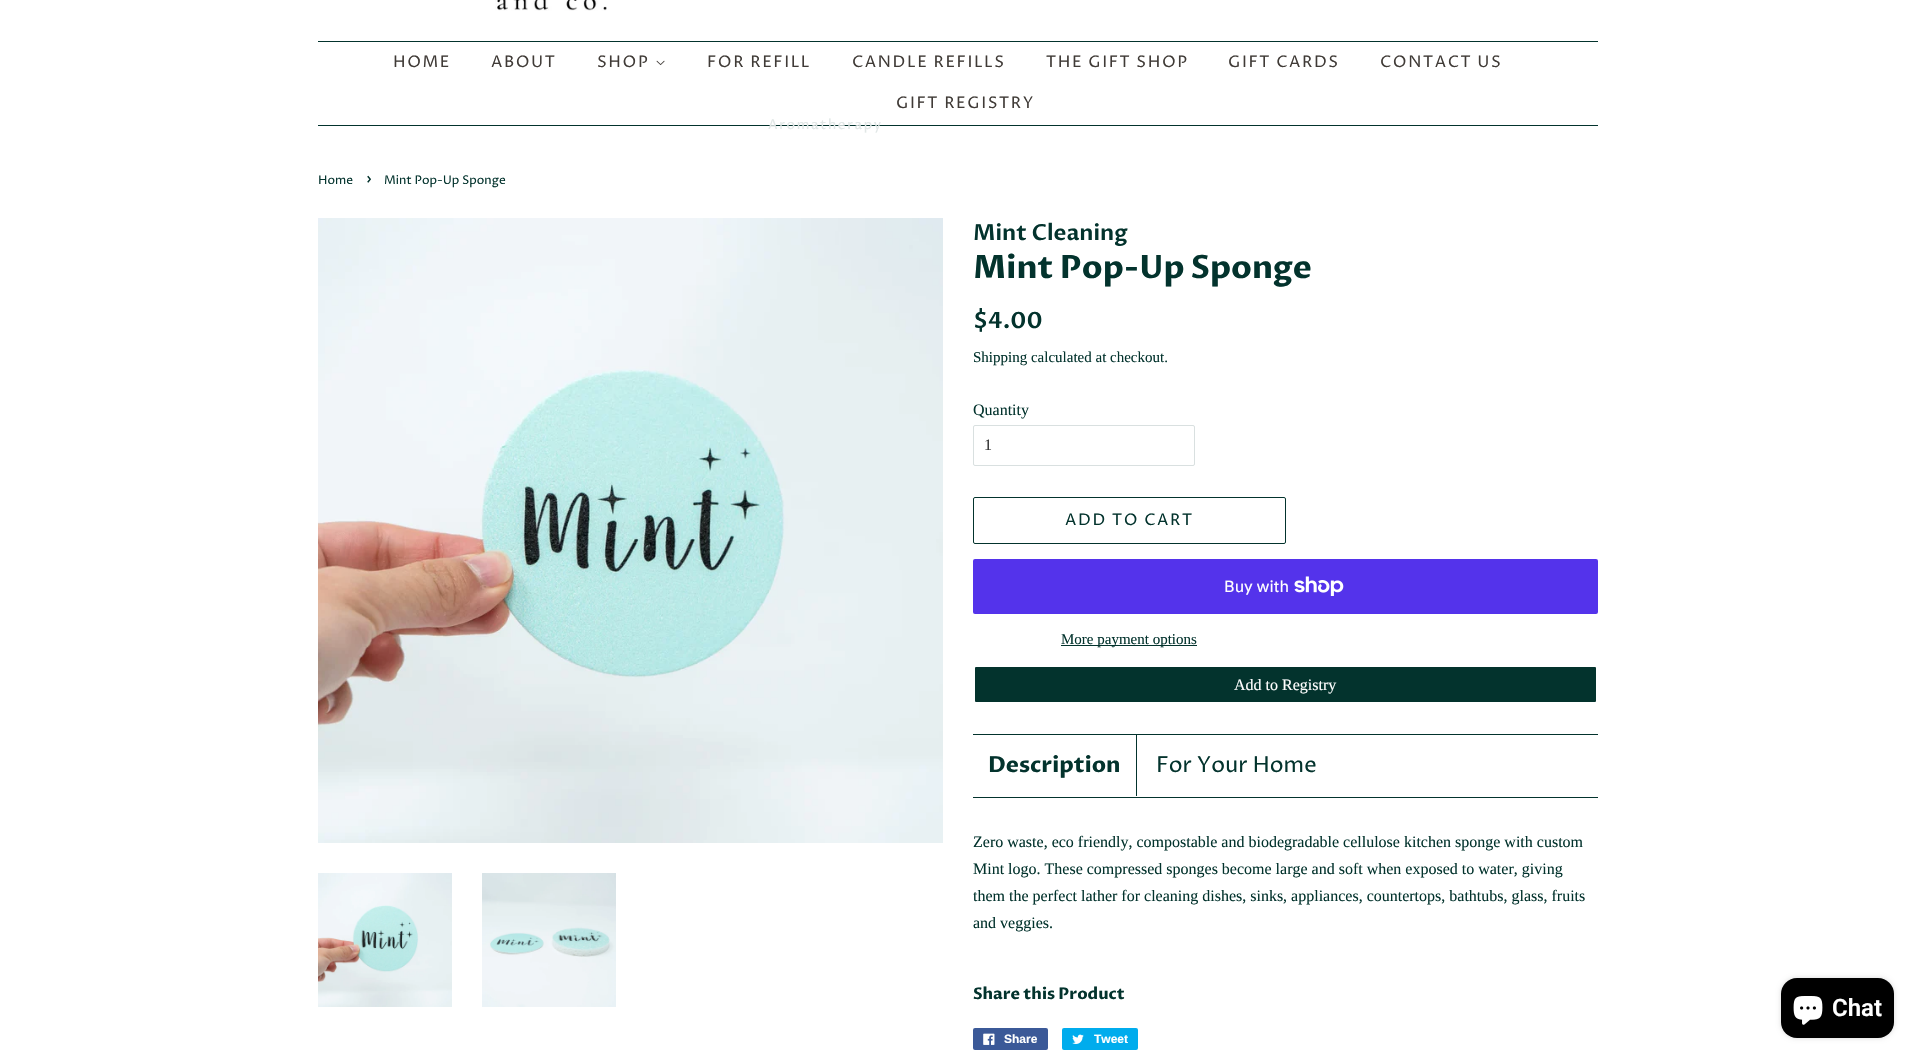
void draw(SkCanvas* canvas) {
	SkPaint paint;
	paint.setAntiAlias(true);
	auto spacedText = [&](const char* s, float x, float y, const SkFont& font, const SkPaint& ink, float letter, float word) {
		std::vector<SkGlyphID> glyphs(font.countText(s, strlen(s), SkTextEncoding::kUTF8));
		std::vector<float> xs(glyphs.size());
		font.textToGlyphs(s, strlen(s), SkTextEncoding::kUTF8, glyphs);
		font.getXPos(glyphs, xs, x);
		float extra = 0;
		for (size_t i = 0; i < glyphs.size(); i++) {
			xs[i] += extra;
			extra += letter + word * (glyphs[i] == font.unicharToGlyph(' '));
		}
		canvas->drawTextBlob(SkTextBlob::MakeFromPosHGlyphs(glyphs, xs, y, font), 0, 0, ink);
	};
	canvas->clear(0xffffffff);
	canvas->drawImageRect(SkImages::DeferredFromEncodedData(SkData::MakeFromFileName("img1.png")), SkRect::MakeXYWH(495, 0, 112, 11), SkSamplingOptions());
	paint.setColor(0xff03332d);
	canvas->drawRect(SkRect::MakeXYWH(318, 41, 1280, 1), paint);
	canvas->drawRect(SkRect::MakeXYWH(318, 125, 1280, 1), paint);
	SkFont f1(fontMgr->matchFamilyStyle("Proza Libre", SkFontStyle::Normal()), 16);
	f1.setSubpixel(true);
	paint.setColor(0xff403b37);
	spacedText("HOME", 393, 67, f1, paint, 1.6, 0);
	spacedText("ABOUT", 491, 67, f1, paint, 1.6, 0);
	spacedText("SHOP", 597, 67, f1, paint, 1.6, 0);
	canvas->drawImageRect(SkImages::DeferredFromEncodedData(SkData::MakeFromFileName("img2.png")), SkRect::MakeXYWH(656, 60, 9, 6), SkSamplingOptions());
	SkFont f2(fontMgr->matchFamilyStyle("Proza Libre", SkFontStyle::Normal()), 13.5);
	f2.setSubpixel(true);
	paint.setColor(0xffe1e7e6);
	spacedText("Aromatherapy", 768, 129, f2, paint, 1.6, 0);
	paint.setColor(0xff403b37);
	spacedText("FOR REFILL", 707, 67, f1, paint, 1.6, 0);
	spacedText("CANDLE REFILLS", 852, 67, f1, paint, 1.6, 0);
	spacedText("THE GIFT SHOP", 1046, 67, f1, paint, 1.6, 0);
	spacedText("GIFT CARDS", 1228, 67, f1, paint, 1.6, 0);
	spacedText("CONTACT US", 1380, 67, f1, paint, 1.6, 0);
	spacedText("GIFT REGISTRY", 896, 108, f1, paint, 1.6, 0);
	SkFont f3(fontMgr->matchFamilyStyle("Proza Libre", SkFontStyle::Normal()), 12);
	f3.setSubpixel(true);
	paint.setColor(0xff03332d);
	canvas->drawString("Home", 318, 184, f3, paint);
	SkFont f4(fontMgr->matchFamilyStyle("Proza Libre", SkFontStyle::Normal()), 17);
	f4.setSubpixel(true);
	canvas->drawString("›", 366, 184, f4, paint);
	canvas->drawString("Mint Pop-Up Sponge", 384, 184, f3, paint);
	canvas->drawImageRect(SkImages::DeferredFromEncodedData(SkData::MakeFromFileName("img3.png")), SkRect::MakeXYWH(318, 218, 625, 625), SkSamplingOptions());
	canvas->drawImageRect(SkImages::DeferredFromEncodedData(SkData::MakeFromFileName("img4.png")), SkRect::MakeXYWH(318, 873, 134, 134), SkSamplingOptions());
	canvas->drawImageRect(SkImages::DeferredFromEncodedData(SkData::MakeFromFileName("img5.png")), SkRect::MakeXYWH(482, 873, 134, 134), SkSamplingOptions());
	SkFont f5(fontMgr->matchFamilyStyle("Proza Libre", SkFontStyle(600, SkFontStyle::kNormal_Width, SkFontStyle::kUpright_Slant)), 22);
	f5.setSubpixel(true);
	canvas->drawString("Mint Cleaning", 973, 240, f5, paint);
	SkFont f6(fontMgr->matchFamilyStyle("Proza Libre", SkFontStyle::Bold()), 32);
	f6.setSubpixel(true);
	canvas->drawString("Mint Pop-Up Sponge", 973, 278, f6, paint);
	SkFont f7(fontMgr->matchFamilyStyle("Proza Libre", SkFontStyle(600, SkFontStyle::kNormal_Width, SkFontStyle::kUpright_Slant)), 22.5);
	f7.setSubpixel(true);
	canvas->drawString("$4.00", 973, 328, f7, paint);
	SkFont f8(fontMgr->matchFamilyStyle("Liberation Serif", SkFontStyle::Normal()), 15);
	f8.setSubpixel(true);
	canvas->drawString("Shipping calculated at checkout.", 973, 362, f8, paint);
	SkFont f9(fontMgr->matchFamilyStyle("Liberation Serif", SkFontStyle::Normal()), 16);
	f9.setSubpixel(true);
	canvas->drawString("Quantity", 973, 415, f9, paint);
	paint.setStroke(true);
	paint.setStrokeWidth(1);
	paint.setColor(0xffd9e0e0);
	canvas->drawRoundRect(SkRect::MakeXYWH(973.5, 425.5, 221, 40), 1.5, 1.5, paint);
	paint.setStroke(false);
	paint.setColor(0xff333333);
	canvas->drawString("1", 984, 450, f9, paint);
	paint.setStroke(true);
	paint.setColor(0xff03332d);
	canvas->drawRoundRect(SkRect::MakeXYWH(973.5, 497.5, 312, 46), 1.5, 1.5, paint);
	paint.setStroke(false);
	spacedText("ADD TO CART", 1065, 525, f1, paint, 1.6, 0);
	paint.setColor(0xff5433eb);
	canvas->drawRoundRect(SkRect::MakeXYWH(973, 559, 625, 55), 2, 2, paint);
	SkFont f10(fontMgr->matchFamilyStyle("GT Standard", SkFontStyle::Normal()), 16);
	f10.setSubpixel(true);
	paint.setColor(0xffffffff);
	canvas->drawString("Buy with", 1224, 592, f10, paint);
	canvas->drawImageRect(SkImages::DeferredFromEncodedData(SkData::MakeFromFileName("img6.png")), SkRect::MakeXYWH(1294, 576, 50, 20), SkSamplingOptions());
	paint.setColor(0xff03332d);
	canvas->drawRect(SkRect::MakeXYWH(1061, 645, 136, 1), paint);
	canvas->drawString("More payment options", 1061, 644, f8, paint);
	canvas->drawRoundRect(SkRect::MakeXYWH(974, 666, 623, 37), 2, 2, paint);
	paint.setStroke(true);
	paint.setStrokeWidth(2);
	paint.setColor(0xffffffff);
	canvas->drawRoundRect(SkRect::MakeXYWH(974, 666, 623, 37), 2, 2, paint);
	paint.setStroke(false);
	canvas->drawString("Add to Registry", 1234, 690, f9, paint);
	paint.setColor(0xff03332d);
	canvas->drawRect(SkRect::MakeXYWH(973, 734, 625, 1), paint);
	canvas->drawRect(SkRect::MakeXYWH(973, 797, 625, 1), paint);
	canvas->drawRect(SkRect::MakeXYWH(1136, 735, 1, 61), paint);
	SkFont f11(fontMgr->matchFamilyStyle("Proza Libre", SkFontStyle::Bold()), 22);
	f11.setSubpixel(true);
	canvas->drawString("Description", 988, 772, f11, paint);
	SkFont f12(fontMgr->matchFamilyStyle("Proza Libre", SkFontStyle::Normal()), 22);
	f12.setSubpixel(true);
	canvas->drawString("For Your Home", 1156, 772, f12, paint);
	canvas->drawString("Zero waste, eco friendly, compostable and biodegradable cellulose kitchen sponge with custom", 973, 847, f9, paint);
	canvas->drawString("Mint logo. These compressed sponges become large and soft when exposed to water, giving", 973, 874, f9, paint);
	canvas->drawString("them the perfect lather for cleaning dishes, sinks, appliances, countertops, bathtubs, glass, fruits", 973, 901, f9, paint);
	canvas->drawString("and veggies.", 973, 928, f9, paint);
	SkFont f13(fontMgr->matchFamilyStyle("Proza Libre", SkFontStyle::Bold()), 16);
	f13.setSubpixel(true);
	canvas->drawString("Share this Product", 973, 999, f13, paint);
	paint.setColor(0xff3b5998);
	canvas->drawRoundRect(SkRect::MakeXYWH(973, 1028, 75, 22), 2, 2, paint);
	canvas->drawImageRect(SkImages::DeferredFromEncodedData(SkData::MakeFromFileName("img7.png")), SkRect::MakeXYWH(983, 1033, 12, 12), SkSamplingOptions());
	SkFont f14(fontMgr->matchFamilyStyle("Liberation Sans", SkFontStyle::Bold()), 12);
	f14.setSubpixel(true);
	paint.setColor(0xffffffff);
	canvas->drawString("Share", 1004, 1043, f14, paint);
	paint.setColor(0xff00aced);
	canvas->drawRoundRect(SkRect::MakeXYWH(1062, 1028, 76, 22), 2, 2, paint);
	canvas->drawImageRect(SkImages::DeferredFromEncodedData(SkData::MakeFromFileName("img8.png")), SkRect::MakeXYWH(1072, 1034, 12, 10), SkSamplingOptions());
	paint.setColor(0xffffffff);
	canvas->drawString("Tweet", 1094, 1043, f14, paint);
	paint.setColor(0x26000000);
	paint.setMaskFilter(SkMaskFilter::MakeBlur(kNormal_SkBlurStyle, 2.5));
	canvas->drawRoundRect(SkRect::MakeXYWH(1781, 978, 113, 60), 16, 16, paint);
	paint.setMaskFilter(nullptr);
	paint.setColor(0xff000000);
	canvas->drawRoundRect(SkRect::MakeXYWH(1781, 978, 113, 60), 16, 16, paint);
	canvas->drawImageRect(SkImages::DeferredFromEncodedData(SkData::MakeFromFileName("img9.png")), SkRect::MakeXYWH(1793, 996, 30, 29), SkSamplingOptions());
	SkFont f15(fontMgr->matchFamilyStyle("Roboto", SkFontStyle(600, SkFontStyle::kNormal_Width, SkFontStyle::kUpright_Slant)), 24);
	f15.setSubpixel(true);
	paint.setColor(0xffffffff);
	canvas->drawString("Chat", 1832, 1016, f15, paint);
}
